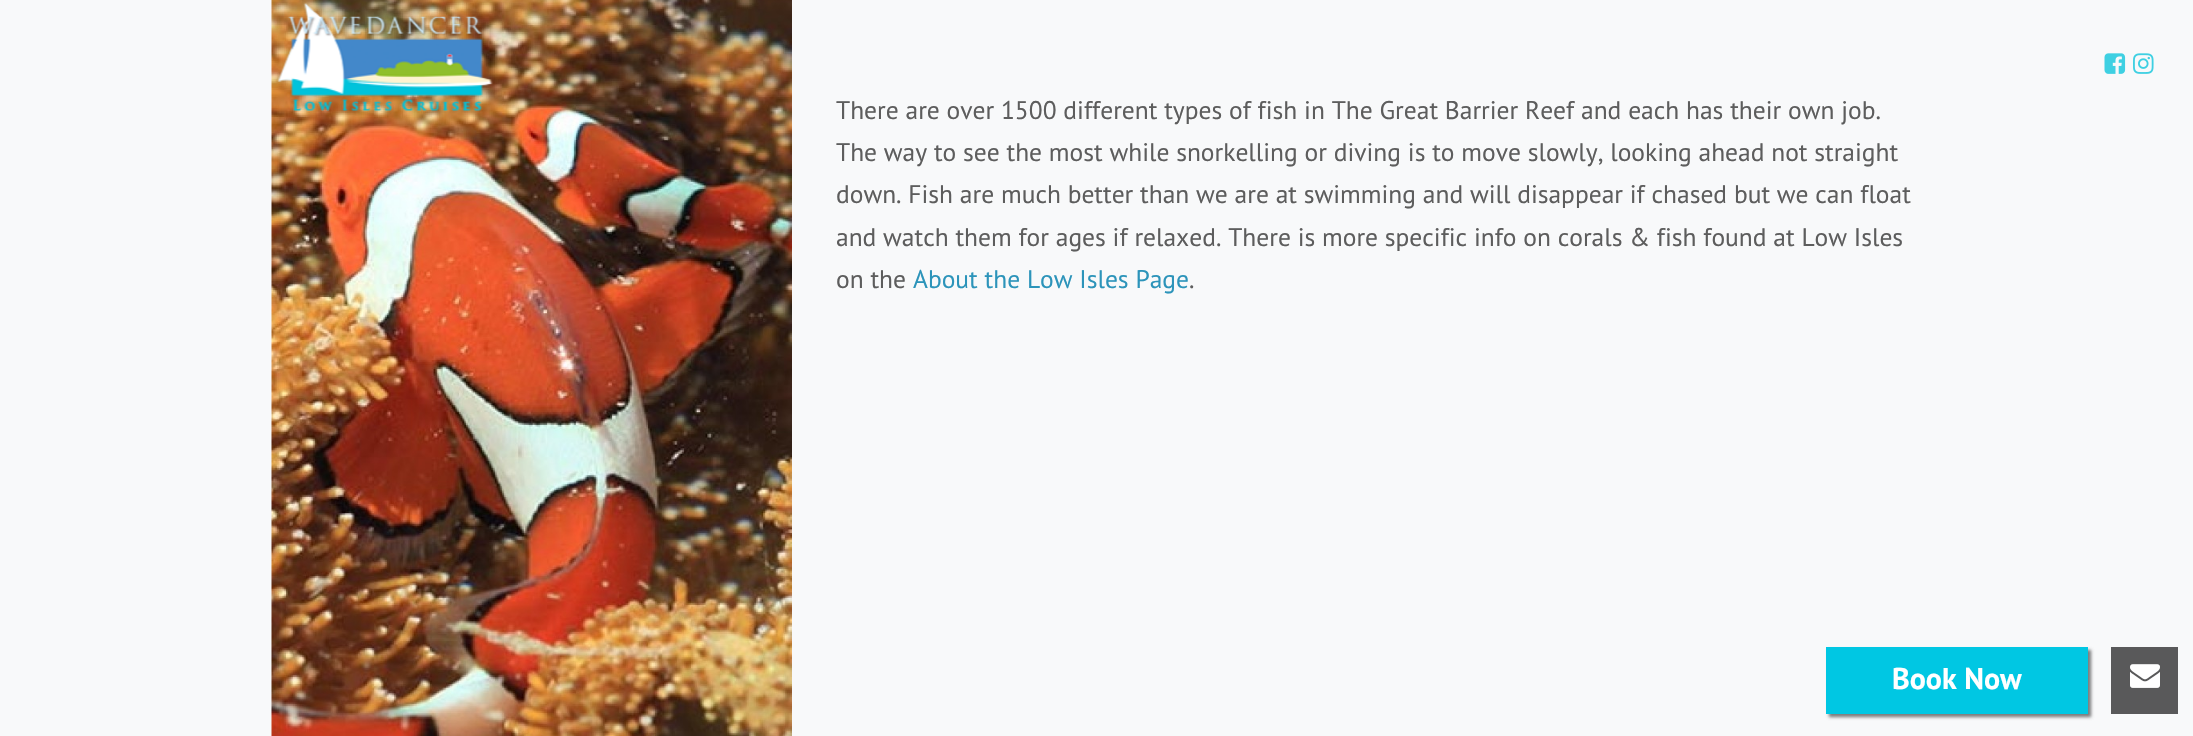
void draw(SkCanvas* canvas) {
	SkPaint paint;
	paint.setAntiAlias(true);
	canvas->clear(0xfff8f9fa);
	canvas->drawImageRect(SkImages::DeferredFromEncodedData(SkData::MakeFromFileName("img4.png")), SkRect::MakeXYWH(271, 0, 521, 736), SkSamplingOptions());
	canvas->drawImageRect(SkImages::DeferredFromEncodedData(SkData::MakeFromFileName("img1.png")), SkRect::MakeXYWH(276, 3, 217, 110), SkSamplingOptions());
	canvas->drawImageRect(SkImages::DeferredFromEncodedData(SkData::MakeFromFileName("img2.png")), SkRect::MakeXYWH(2104, 53, 22, 21), SkSamplingOptions());
	canvas->drawImageRect(SkImages::DeferredFromEncodedData(SkData::MakeFromFileName("img3.png")), SkRect::MakeXYWH(2133, 53, 21, 21), SkSamplingOptions());
	SkFont f1(fontMgr->matchFamilyStyle("PT Sans", SkFontStyle::Normal()), 25.5);
	f1.setSubpixel(true);
	paint.setColor(0xff5d5d5d);
	canvas->drawString("There are over 1500 different types of fish in The Great Barrier Reef and each has their own job.", 836, 119, f1, paint);
	canvas->drawString("The way to see the most while snorkelling or diving is to move slowly, looking ahead not straight", 836, 161, f1, paint);
	canvas->drawString("down. Fish are much better than we are at swimming and will disappear if chased but we can float", 836, 203, f1, paint);
	canvas->drawString("and watch them for ages if relaxed. There is more specific info on corals & fish found at Low Isles", 836, 246, f1, paint);
	canvas->drawString("on the", 836, 288, f1, paint);
	paint.setColor(0xff2c94ba);
	canvas->drawString("About the Low Isles Page", 913, 288, f1, paint);
	paint.setColor(0xff5d5d5d);
	canvas->drawString(".", 1189, 288, f1, paint);
	paint.setColor(0x4a000000);
	paint.setMaskFilter(SkMaskFilter::MakeBlur(kNormal_SkBlurStyle, 1.5));
	canvas->drawRect(SkRect::MakeXYWH(1829, 650, 262, 67), paint);
	paint.setMaskFilter(nullptr);
	paint.setColor(0xff59595a);
	canvas->drawRect(SkRect::MakeXYWH(2111, 647, 67, 67), paint);
	canvas->drawImageRect(SkImages::DeferredFromEncodedData(SkData::MakeFromFileName("img5.png")), SkRect::MakeXYWH(2130, 664, 30, 24), SkSamplingOptions());
	paint.setColor(0x4a000000);
	paint.setMaskFilter(SkMaskFilter::MakeBlur(kNormal_SkBlurStyle, 1.5));
	canvas->drawRect(SkRect::MakeXYWH(1829, 650, 262, 67), paint);
	paint.setMaskFilter(nullptr);
	paint.setColor(0xff00c7e3);
	canvas->drawRect(SkRect::MakeXYWH(1826, 647, 262, 67), paint);
	SkFont f2(fontMgr->matchFamilyStyle("PT Sans", SkFontStyle::Bold()), 30);
	f2.setSubpixel(true);
	paint.setColor(0xffffffff);
	canvas->drawString("Book Now", 1892, 689, f2, paint);
	canvas->drawImageRect(SkImages::DeferredFromEncodedData(SkData::MakeFromFileName("img6.png")), SkRect::MakeXYWH(2130, 664, 30, 24), SkSamplingOptions());
}
